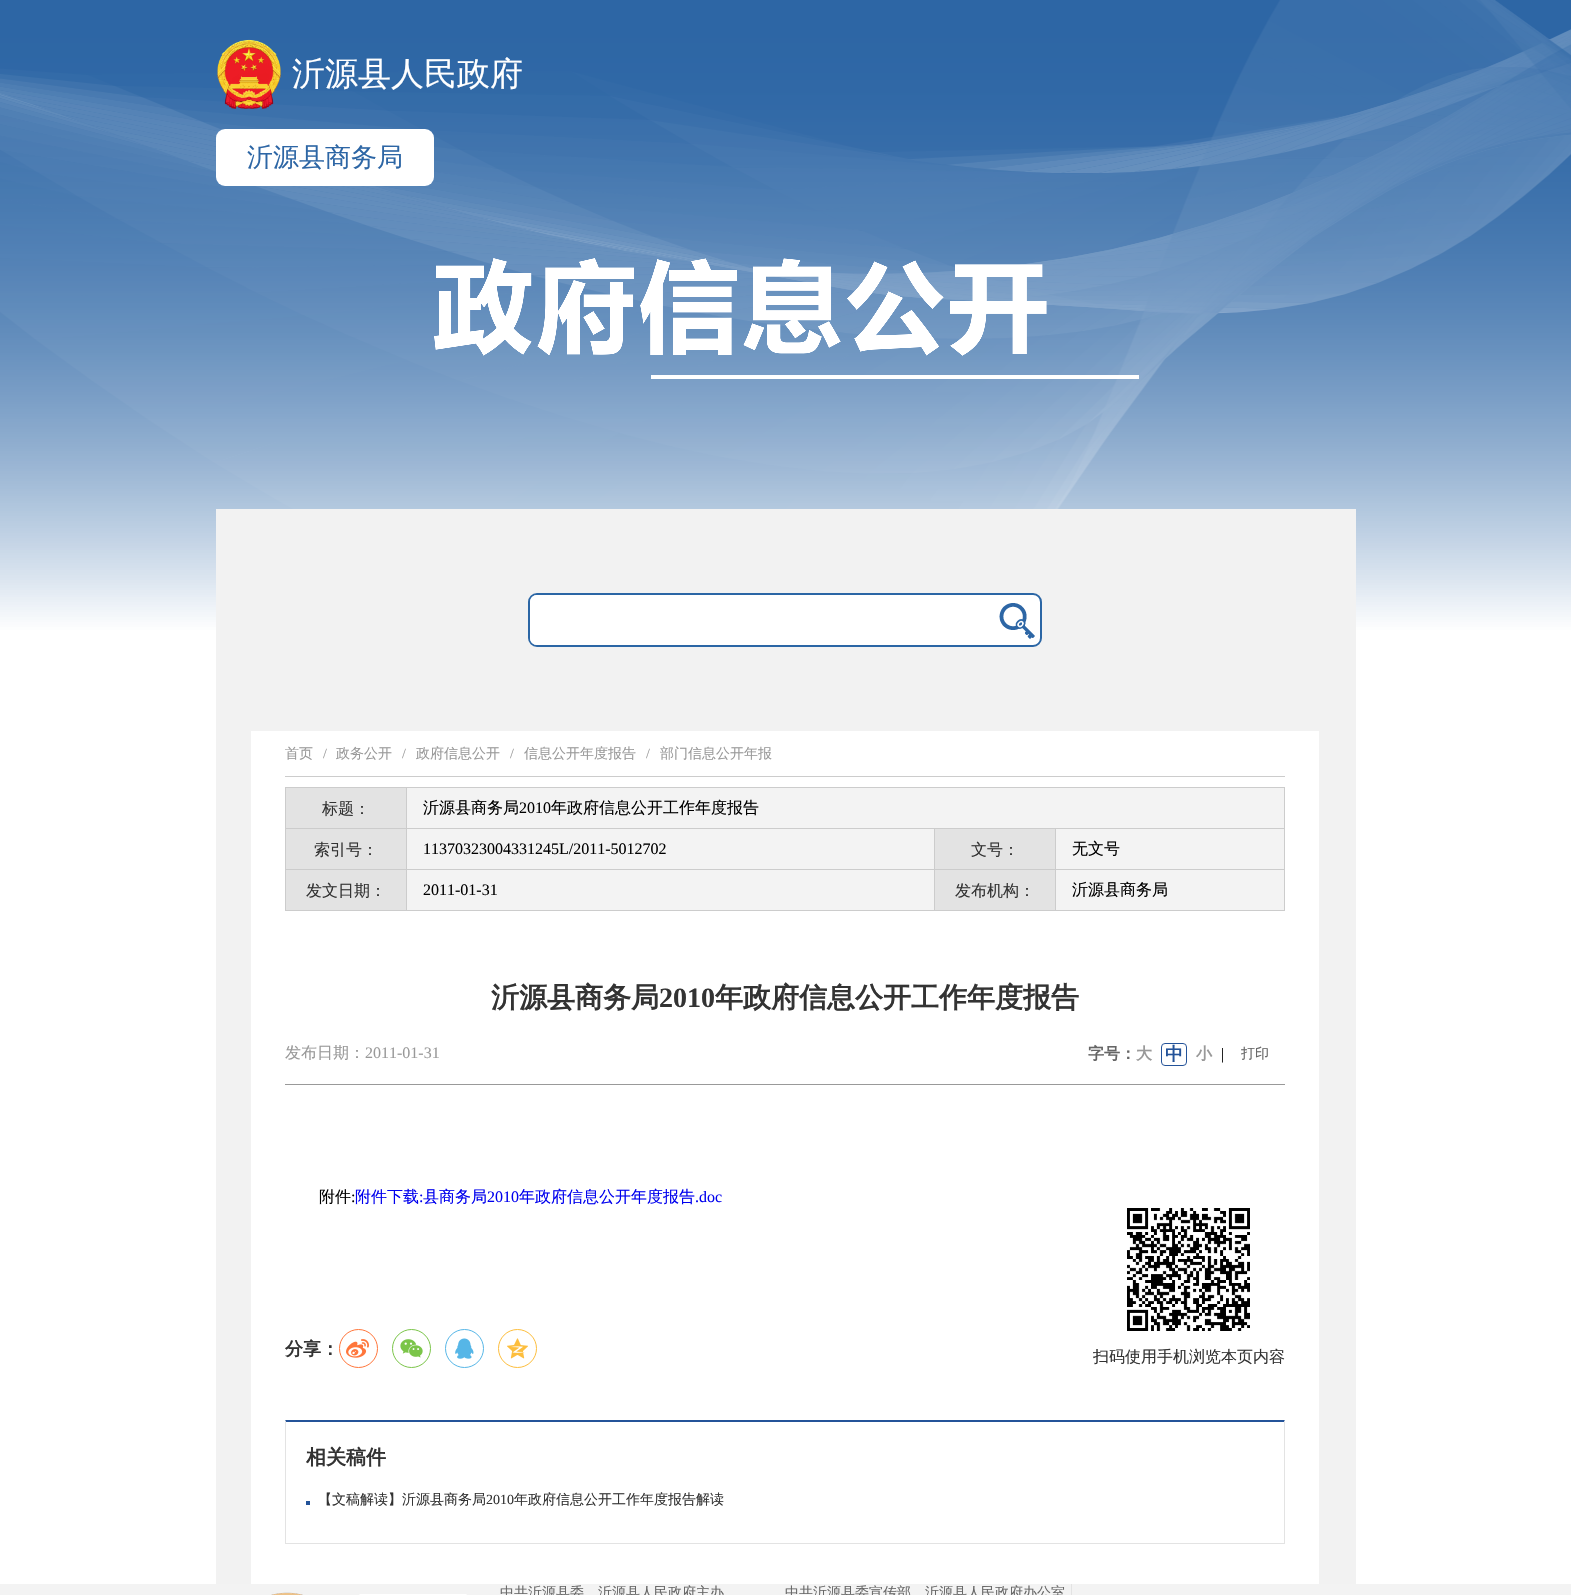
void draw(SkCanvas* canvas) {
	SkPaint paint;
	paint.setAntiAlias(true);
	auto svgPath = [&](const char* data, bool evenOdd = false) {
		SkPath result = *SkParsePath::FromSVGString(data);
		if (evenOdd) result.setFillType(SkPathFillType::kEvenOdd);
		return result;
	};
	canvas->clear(0xffffffff);
	canvas->drawImageRect(SkImages::DeferredFromEncodedData(SkData::MakeFromFileName("img1.png")), SkRect::MakeXYWH(0, 0, 1571, 631), SkSamplingOptions());
	canvas->drawImageRect(SkImages::DeferredFromEncodedData(SkData::MakeFromFileName("img2.png")), SkRect::MakeXYWH(217, 39, 64, 70), SkSamplingOptions());
	SkFont f1(fontMgr->matchFamilyStyle("WenQuanYi Zen Hei", SkFontStyle(500, SkFontStyle::kNormal_Width, SkFontStyle::kUpright_Slant)), 33);
	f1.setSubpixel(true);
	paint.setColor(0xffffffff);
	canvas->drawString("沂源县人民政府", 292, 85, f1, paint);
	canvas->drawRoundRect(SkRect::MakeXYWH(216, 129, 218, 57), 9, 9, paint);
	SkFont f2(fontMgr->matchFamilyStyle("WenQuanYi Zen Hei", SkFontStyle(500, SkFontStyle::kNormal_Width, SkFontStyle::kUpright_Slant)), 26);
	f2.setSubpixel(true);
	paint.setColor(0xff2d66a5);
	canvas->drawString("沂源县商务局", 247, 166, f2, paint);
	canvas->drawImageRect(SkImages::DeferredFromEncodedData(SkData::MakeFromFileName("img3.png")), SkRect::MakeXYWH(434, 258, 705, 121), SkSamplingOptions());
	paint.setColor(0xfff2f2f2);
	canvas->drawRect(SkRect::MakeXYWH(216, 509, 1140, 1075), paint);
	paint.setColor(0xffffffff);
	canvas->drawRoundRect(SkRect::MakeXYWH(529, 594, 512, 52), 8, 8, paint);
	paint.setStroke(true);
	paint.setStrokeWidth(2);
	paint.setColor(0xff2b66a5);
	canvas->drawRoundRect(SkRect::MakeXYWH(529, 594, 512, 52), 8, 8, paint);
	paint.setStroke(false);
	paint.setColor(0xffffffff);
	canvas->drawPath(svgPath("M537 595H999V645H537C533 645 530 642 530 638V602C530 598 533 595 537 595Z"), paint);
	canvas->drawImageRect(SkImages::DeferredFromEncodedData(SkData::MakeFromFileName("img4.png")), SkRect::MakeXYWH(999, 603, 36, 36), SkSamplingOptions());
	canvas->drawRect(SkRect::MakeXYWH(251, 731, 1068, 853), paint);
	paint.setColor(0xffcccccc);
	canvas->drawRect(SkRect::MakeXYWH(285, 776, 1000, 1), paint);
	SkFont f3(fontMgr->matchFamilyStyle("WenQuanYi Zen Hei", SkFontStyle(500, SkFontStyle::kNormal_Width, SkFontStyle::kUpright_Slant)), 14);
	f3.setSubpixel(true);
	paint.setColor(0xff999999);
	canvas->drawString("首页", 285, 758, f3, paint);
	SkFont f4(fontMgr->matchFamilyStyle("Liberation Serif", SkFontStyle::Normal()), 14);
	f4.setSubpixel(true);
	canvas->drawString("/", 323, 758, f4, paint);
	canvas->drawString("政务公开", 336, 758, f3, paint);
	canvas->drawString("/", 402, 758, f4, paint);
	canvas->drawString("政府信息公开", 416, 758, f3, paint);
	canvas->drawString("/", 510, 758, f4, paint);
	canvas->drawString("信息公开年度报告", 524, 758, f3, paint);
	canvas->drawString("/", 646, 758, f4, paint);
	canvas->drawString("部门信息公开年报", 660, 758, f3, paint);
	paint.setColor(0xffcccccc);
	canvas->drawRect(SkRect::MakeXYWH(285, 787, 1000, 1), paint);
	canvas->drawRect(SkRect::MakeXYWH(1284, 787, 1, 82), paint);
	canvas->drawRect(SkRect::MakeXYWH(285, 787, 1, 124), paint);
	paint.setColor(0xffe3e3e3);
	canvas->drawRect(SkRect::MakeXYWH(286, 788, 120, 40), paint);
	SkFont f5(fontMgr->matchFamilyStyle("WenQuanYi Zen Hei", SkFontStyle(500, SkFontStyle::kNormal_Width, SkFontStyle::kUpright_Slant)), 16);
	f5.setSubpixel(true);
	paint.setColor(0xff333333);
	canvas->drawString("标题：", 322, 814, f5, paint);
	paint.setColor(0xfff3f3f3);
	canvas->drawRect(SkRect::MakeXYWH(407, 788, 877, 40), paint);
	paint.setColor(0xffcccccc);
	canvas->drawRect(SkRect::MakeXYWH(1055, 828, 230, 1), paint);
	canvas->drawRect(SkRect::MakeXYWH(1055, 869, 230, 1), paint);
	canvas->drawRect(SkRect::MakeXYWH(1284, 869, 1, 42), paint);
	canvas->drawRect(SkRect::MakeXYWH(1055, 910, 230, 1), paint);
	canvas->drawRect(SkRect::MakeXYWH(1055, 869, 1, 42), paint);
	canvas->drawRect(SkRect::MakeXYWH(934, 869, 122, 1), paint);
	canvas->drawRect(SkRect::MakeXYWH(1055, 828, 1, 42), paint);
	canvas->drawRect(SkRect::MakeXYWH(934, 828, 122, 1), paint);
	canvas->drawRect(SkRect::MakeXYWH(934, 910, 122, 1), paint);
	canvas->drawRect(SkRect::MakeXYWH(934, 869, 1, 42), paint);
	canvas->drawRect(SkRect::MakeXYWH(406, 869, 529, 1), paint);
	canvas->drawRect(SkRect::MakeXYWH(934, 828, 1, 42), paint);
	canvas->drawRect(SkRect::MakeXYWH(406, 828, 529, 1), paint);
	canvas->drawRect(SkRect::MakeXYWH(406, 910, 529, 1), paint);
	canvas->drawRect(SkRect::MakeXYWH(406, 869, 1, 42), paint);
	canvas->drawRect(SkRect::MakeXYWH(285, 869, 122, 1), paint);
	canvas->drawRect(SkRect::MakeXYWH(406, 828, 1, 42), paint);
	canvas->drawRect(SkRect::MakeXYWH(285, 828, 122, 1), paint);
	canvas->drawRect(SkRect::MakeXYWH(406, 787, 1, 42), paint);
	paint.setColor(0xff000000);
	canvas->drawString("沂源县商务局", 423, 813, f5, paint);
	SkFont f6(fontMgr->matchFamilyStyle("Liberation Serif", SkFontStyle::Normal()), 16);
	f6.setSubpixel(true);
	canvas->drawString("2010", 519, 813, f6, paint);
	canvas->drawString("年政府信息公开工作年度报告", 551, 813, f5, paint);
	paint.setColor(0xffe3e3e3);
	canvas->drawRect(SkRect::MakeXYWH(286, 829, 120, 40), paint);
	paint.setColor(0xff333333);
	canvas->drawString("索引号：", 314, 855, f5, paint);
	paint.setColor(0xfff3f3f3);
	canvas->drawRect(SkRect::MakeXYWH(407, 829, 527, 40), paint);
	paint.setColor(0xff000000);
	canvas->drawString("11370323004331245L/2011-5012702", 423, 854, f6, paint);
	paint.setColor(0xffe3e3e3);
	canvas->drawRect(SkRect::MakeXYWH(935, 829, 120, 40), paint);
	paint.setColor(0xff333333);
	canvas->drawString("文号：", 971, 855, f5, paint);
	paint.setColor(0xfff3f3f3);
	canvas->drawRect(SkRect::MakeXYWH(1056, 829, 228, 40), paint);
	paint.setColor(0xff000000);
	canvas->drawString("无文号", 1072, 854, f5, paint);
	paint.setColor(0xffe3e3e3);
	canvas->drawRect(SkRect::MakeXYWH(286, 870, 120, 40), paint);
	paint.setColor(0xffcccccc);
	canvas->drawRect(SkRect::MakeXYWH(285, 910, 122, 1), paint);
	paint.setColor(0xff333333);
	canvas->drawString("发文日期：", 306, 896, f5, paint);
	paint.setColor(0xfff3f3f3);
	canvas->drawRect(SkRect::MakeXYWH(407, 870, 527, 40), paint);
	paint.setColor(0xff000000);
	canvas->drawString("2011-01-31", 423, 895, f6, paint);
	paint.setColor(0xffe3e3e3);
	canvas->drawRect(SkRect::MakeXYWH(935, 870, 120, 40), paint);
	paint.setColor(0xff333333);
	canvas->drawString("发布机构：", 955, 896, f5, paint);
	paint.setColor(0xfff3f3f3);
	canvas->drawRect(SkRect::MakeXYWH(1056, 870, 228, 40), paint);
	paint.setColor(0xff000000);
	canvas->drawString("沂源县商务局", 1072, 895, f5, paint);
	SkFont f7(fontMgr->matchFamilyStyle("WenQuanYi Zen Hei", SkFontStyle::Bold()), 28);
	f7.setSubpixel(true);
	paint.setColor(0xff333333);
	canvas->drawString("沂源县商务局", 491, 1007, f7, paint);
	SkFont f8(fontMgr->matchFamilyStyle("Liberation Serif", SkFontStyle::Bold()), 28);
	f8.setSubpixel(true);
	canvas->drawString("2010", 659, 1007, f8, paint);
	canvas->drawString("年政府信息公开工作年度报告", 715, 1007, f7, paint);
	paint.setColor(0xff999999);
	canvas->drawRect(SkRect::MakeXYWH(285, 1084, 1000, 1), paint);
	canvas->drawString("发布日期：", 285, 1058, f5, paint);
	canvas->drawString("2011-01-31", 365, 1058, f6, paint);
	SkFont f9(fontMgr->matchFamilyStyle("WenQuanYi Zen Hei", SkFontStyle::Bold()), 16);
	f9.setSubpixel(true);
	paint.setColor(0xff666666);
	canvas->drawString("字号：", 1088, 1059, f9, paint);
	paint.setColor(0xff999999);
	canvas->drawString("大", 1136, 1059, f9, paint);
	paint.setStroke(true);
	paint.setStrokeWidth(1);
	paint.setColor(0xff245399);
	canvas->drawRoundRect(SkRect::MakeXYWH(1161.5, 1043.5, 25, 22), 3.5, 3.5, paint);
	SkFont f10(fontMgr->matchFamilyStyle("WenQuanYi Zen Hei", SkFontStyle::Bold()), 18);
	f10.setSubpixel(true);
	paint.setStroke(false);
	canvas->drawString("中", 1165, 1060, f10, paint);
	paint.setColor(0xff999999);
	canvas->drawString("小", 1196, 1059, f9, paint);
	paint.setColor(0xff000000);
	canvas->drawString("|", 1221, 1059, f6, paint);
	paint.setColor(0xff666666);
	canvas->drawString("打印", 1241, 1058, f3, paint);
	paint.setColor(0xff000000);
	canvas->drawString("附件", 319, 1202, f5, paint);
	canvas->drawString(":", 351, 1202, f6, paint);
	paint.setColor(0xff0000ee);
	canvas->drawString("附件下载", 355, 1202, f5, paint);
	canvas->drawString(":", 419, 1202, f6, paint);
	canvas->drawString("县商务局", 423, 1202, f5, paint);
	canvas->drawString("2010", 487, 1202, f6, paint);
	canvas->drawString("年政府信息公开年度报告", 519, 1202, f5, paint);
	canvas->drawString(".doc", 695, 1202, f6, paint);
	paint.setColor(0xff333333);
	canvas->drawString("分享：", 285, 1355, f10, paint);
	paint.setStroke(true);
	paint.setColor(0xffff763b);
	canvas->drawCircle(358.5, 1348.5, 19, paint);
	canvas->drawImageRect(SkImages::DeferredFromEncodedData(SkData::MakeFromFileName("img5.png")), SkRect::MakeXYWH(346, 1339, 23, 19), SkSamplingOptions());
	paint.setColor(0xff7bc549);
	canvas->drawCircle(411.5, 1348.5, 19, paint);
	canvas->drawImageRect(SkImages::DeferredFromEncodedData(SkData::MakeFromFileName("img6.png")), SkRect::MakeXYWH(400, 1339, 23, 19), SkSamplingOptions());
	paint.setColor(0xff56b6e7);
	canvas->drawCircle(464.5, 1348.5, 19, paint);
	canvas->drawImageRect(SkImages::DeferredFromEncodedData(SkData::MakeFromFileName("img7.png")), SkRect::MakeXYWH(455, 1338, 19, 21), SkSamplingOptions());
	paint.setColor(0xfffdbe3d);
	canvas->drawCircle(517.5, 1348.5, 19, paint);
	canvas->drawImageRect(SkImages::DeferredFromEncodedData(SkData::MakeFromFileName("img8.png")), SkRect::MakeXYWH(507, 1338, 21, 21), SkSamplingOptions());
	canvas->drawImageRect(SkImages::DeferredFromEncodedData(SkData::MakeFromFileName("img9.png")), SkRect::MakeXYWH(1127, 1208, 123, 123), SkSamplingOptions());
	paint.setStroke(false);
	paint.setColor(0xff333333);
	canvas->drawString("扫码使用手机浏览本页内容", 1093, 1362, f5, paint);
	paint.setColor(0xff245399);
	canvas->drawPath(svgPath("M285 1420H1285L1284 1422H286Z"), paint);
	paint.setColor(0xffe3e3e3);
	canvas->drawPath(svgPath("M1285 1420V1544L1284 1543V1422Z"), paint);
	canvas->drawRect(SkRect::MakeXYWH(285, 1543, 1000, 1), paint);
	canvas->drawPath(svgPath("M285 1544V1420L286 1422V1543Z"), paint);
	SkFont f11(fontMgr->matchFamilyStyle("WenQuanYi Zen Hei", SkFontStyle::Bold()), 20);
	f11.setSubpixel(true);
	paint.setColor(0xff333333);
	canvas->drawString("相关稿件", 306, 1464, f11, paint);
	paint.setColor(0xff235399);
	canvas->drawRect(SkRect::MakeXYWH(306, 1501, 4, 4), paint);
	paint.setColor(0xff333333);
	canvas->drawString("【文稿解读】沂源县商务局", 318, 1504, f3, paint);
	canvas->drawString("2010", 486, 1504, f4, paint);
	canvas->drawString("年政府信息公开工作年度报告解读", 514, 1504, f3, paint);
	paint.setColor(0xfff3f3f3);
	canvas->drawRect(SkRect::MakeXYWH(0, 1584, 1571, 11), paint);
	canvas->drawImageRect(SkImages::DeferredFromEncodedData(SkData::MakeFromFileName("img10.png")), SkRect::MakeXYWH(271, 1592, 32, 3), SkSamplingOptions());
	canvas->drawImageRect(SkImages::DeferredFromEncodedData(SkData::MakeFromFileName("img11.png")), SkRect::MakeXYWH(359, 1594, 108, 1), SkSamplingOptions());
	paint.setColor(0xff666666);
	canvas->drawString("中共沂源县委，沂源县人民政府主办", 500, 1597, f3, paint);
	canvas->drawString("中共沂源县委宣传部，沂源县人民政府办公室", 785, 1597, f3, paint);
	paint.setColor(0xffe3e3e3);
	canvas->drawRect(SkRect::MakeXYWH(1071, 1584, 1, 11), paint);
}
